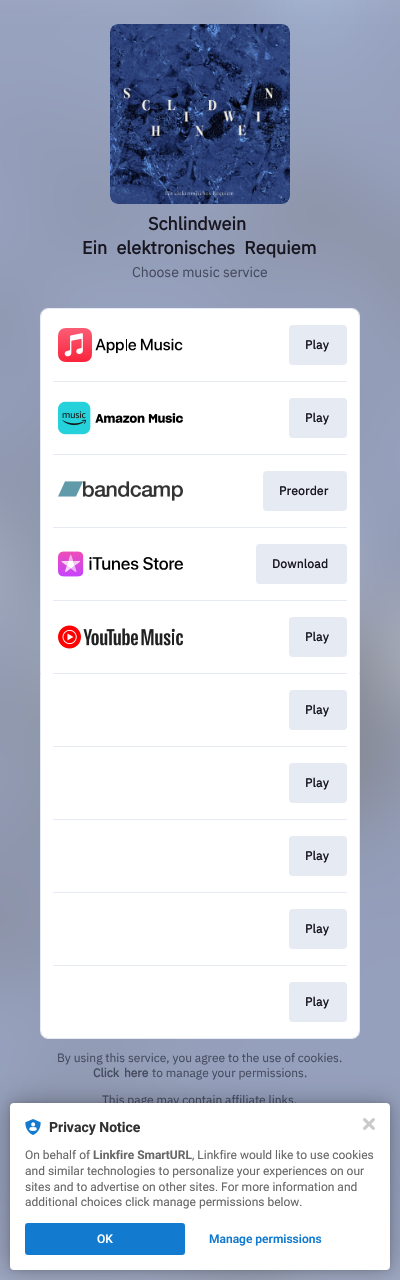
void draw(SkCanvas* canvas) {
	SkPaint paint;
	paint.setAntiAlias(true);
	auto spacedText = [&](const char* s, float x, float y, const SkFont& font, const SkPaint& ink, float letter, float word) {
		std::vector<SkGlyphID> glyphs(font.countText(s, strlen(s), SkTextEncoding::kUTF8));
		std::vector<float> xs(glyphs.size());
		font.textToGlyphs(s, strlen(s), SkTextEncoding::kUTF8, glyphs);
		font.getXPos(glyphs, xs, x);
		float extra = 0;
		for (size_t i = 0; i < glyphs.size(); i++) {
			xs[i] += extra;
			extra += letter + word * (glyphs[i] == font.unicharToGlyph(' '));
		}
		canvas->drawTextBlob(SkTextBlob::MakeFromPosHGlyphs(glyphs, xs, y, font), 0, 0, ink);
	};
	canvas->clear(0xffffffff);
	canvas->drawImageRect(SkImages::DeferredFromEncodedData(SkData::MakeFromFileName("img1.png")), SkRect::MakeXYWH(0, 0, 400, 1280), SkSamplingOptions());
	canvas->drawImageRect(SkImages::DeferredFromEncodedData(SkData::MakeFromFileName("img2.png")), SkRect::MakeXYWH(110, 24, 180, 180), SkSamplingOptions());
	SkFont f1(fontMgr->matchFamilyStyle("IBM Plex Sans", SkFontStyle::Bold()), 18);
	f1.setSubpixel(true);
	paint.setColor(0xff181721);
	canvas->drawString("Schlindwein", 148, 230, f1, paint);
	spacedText("Ein elektronisches Requiem", 82, 254, f1, paint, 0, 5);
	SkFont f2(fontMgr->matchFamilyStyle("IBM Plex Sans", SkFontStyle::Normal()), 14);
	f2.setSubpixel(true);
	paint.setColor(0xff454b5f);
	canvas->drawString("Choose music service", 132, 277, f2, paint);
	paint.setStroke(true);
	paint.setStrokeWidth(1);
	paint.setColor(0xffe6eaf2);
	canvas->drawRoundRect(SkRect::MakeXYWH(40.5, 308.5, 319, 730), 7.5, 7.5, paint);
	paint.setStroke(false);
	paint.setColor(0xffffffff);
	canvas->drawRoundRect(SkRect::MakeXYWH(41, 309, 318, 729), 7, 7, paint);
	canvas->drawImageRect(SkImages::DeferredFromEncodedData(SkData::MakeFromFileName("img3.png")), SkRect::MakeXYWH(58, 328, 125, 34), SkSamplingOptions());
	paint.setColor(0xffe6eaf2);
	canvas->drawRoundRect(SkRect::MakeXYWH(289, 325, 58, 40), 4, 4, paint);
	SkFont f3(fontMgr->matchFamilyStyle("IBM Plex Sans", SkFontStyle::Bold()), 12);
	f3.setSubpixel(true);
	paint.setColor(0xff181721);
	spacedText("Play", 305, 349, f3, paint, 0.25, 0);
	paint.setColor(0xffe6eaf2);
	canvas->drawRect(SkRect::MakeXYWH(53, 381, 294, 1), paint);
	canvas->drawImageRect(SkImages::DeferredFromEncodedData(SkData::MakeFromFileName("img4.png")), SkRect::MakeXYWH(58, 401, 125, 34), SkSamplingOptions());
	canvas->drawRoundRect(SkRect::MakeXYWH(289, 398, 58, 40), 4, 4, paint);
	paint.setColor(0xff181721);
	spacedText("Play", 305, 422, f3, paint, 0.25, 0);
	paint.setColor(0xffe6eaf2);
	canvas->drawRect(SkRect::MakeXYWH(53, 454, 294, 1), paint);
	canvas->drawImageRect(SkImages::DeferredFromEncodedData(SkData::MakeFromFileName("img5.png")), SkRect::MakeXYWH(58, 481, 125, 20), SkSamplingOptions());
	canvas->drawRoundRect(SkRect::MakeXYWH(263, 471, 84, 40), 4, 4, paint);
	paint.setColor(0xff181721);
	spacedText("Preorder", 279, 495, f3, paint, 0.25, 0);
	paint.setColor(0xffe6eaf2);
	canvas->drawRect(SkRect::MakeXYWH(53, 527, 294, 1), paint);
	canvas->drawImageRect(SkImages::DeferredFromEncodedData(SkData::MakeFromFileName("img6.png")), SkRect::MakeXYWH(58, 551, 125, 26), SkSamplingOptions());
	canvas->drawRoundRect(SkRect::MakeXYWH(256, 544, 91, 40), 4, 4, paint);
	paint.setColor(0xff181721);
	spacedText("Download", 272, 568, f3, paint, 0.25, 0);
	paint.setColor(0xffe6eaf2);
	canvas->drawRect(SkRect::MakeXYWH(53, 600, 294, 1), paint);
	canvas->drawImageRect(SkImages::DeferredFromEncodedData(SkData::MakeFromFileName("img7.png")), SkRect::MakeXYWH(58, 625, 125, 24), SkSamplingOptions());
	canvas->drawRoundRect(SkRect::MakeXYWH(289, 617, 58, 40), 4, 4, paint);
	paint.setColor(0xff181721);
	spacedText("Play", 305, 641, f3, paint, 0.25, 0);
	paint.setColor(0xffe6eaf2);
	canvas->drawRect(SkRect::MakeXYWH(53, 673, 294, 1), paint);
	canvas->drawRoundRect(SkRect::MakeXYWH(289, 690, 58, 40), 4, 4, paint);
	paint.setColor(0xff181721);
	spacedText("Play", 305, 714, f3, paint, 0.25, 0);
	paint.setColor(0xffe6eaf2);
	canvas->drawRect(SkRect::MakeXYWH(53, 746, 294, 1), paint);
	canvas->drawRoundRect(SkRect::MakeXYWH(289, 763, 58, 40), 4, 4, paint);
	paint.setColor(0xff181721);
	spacedText("Play", 305, 787, f3, paint, 0.25, 0);
	paint.setColor(0xffe6eaf2);
	canvas->drawRect(SkRect::MakeXYWH(53, 819, 294, 1), paint);
	canvas->drawRoundRect(SkRect::MakeXYWH(289, 836, 58, 40), 4, 4, paint);
	paint.setColor(0xff181721);
	spacedText("Play", 305, 860, f3, paint, 0.25, 0);
	paint.setColor(0xffe6eaf2);
	canvas->drawRect(SkRect::MakeXYWH(53, 892, 294, 1), paint);
	canvas->drawRoundRect(SkRect::MakeXYWH(289, 909, 58, 40), 4, 4, paint);
	paint.setColor(0xff181721);
	spacedText("Play", 305, 933, f3, paint, 0.25, 0);
	paint.setColor(0xffe6eaf2);
	canvas->drawRect(SkRect::MakeXYWH(53, 965, 294, 1), paint);
	canvas->drawRoundRect(SkRect::MakeXYWH(289, 982, 58, 40), 4, 4, paint);
	paint.setColor(0xff181721);
	spacedText("Play", 305, 1006, f3, paint, 0.25, 0);
	SkFont f4(fontMgr->matchFamilyStyle("IBM Plex Sans", SkFontStyle::Normal()), 12);
	f4.setSubpixel(true);
	paint.setColor(0xff454b5f);
	canvas->drawString("By using this service, you agree to the use of cookies.", 57, 1062, f4, paint);
	spacedText("Click here", 93, 1077, f3, paint, 0, 2);
	canvas->drawString("to manage your permissions.", 152, 1077, f4, paint);
	canvas->drawString("This page may contain affiliate links.", 102, 1104, f4, paint);
	paint.setColor(0x1f000000);
	paint.setMaskFilter(SkMaskFilter::MakeBlur(kNormal_SkBlurStyle, 2));
	canvas->drawRoundRect(SkRect::MakeXYWH(10, 1103, 380, 167), 4, 4, paint);
	paint.setMaskFilter(nullptr);
	paint.setColor(0x4d000000);
	paint.setMaskFilter(SkMaskFilter::MakeBlur(kNormal_SkBlurStyle, 12));
	canvas->drawRoundRect(SkRect::MakeXYWH(10, 1103, 380, 167), 4, 4, paint);
	paint.setMaskFilter(nullptr);
	paint.setColor(0xffffffff);
	canvas->drawRoundRect(SkRect::MakeXYWH(10, 1103, 380, 167), 4, 4, paint);
	canvas->drawImageRect(SkImages::DeferredFromEncodedData(SkData::MakeFromFileName("img8.png")), SkRect::MakeXYWH(363, 1118, 12, 12), SkSamplingOptions());
	canvas->drawImageRect(SkImages::DeferredFromEncodedData(SkData::MakeFromFileName("img9.png")), SkRect::MakeXYWH(25, 1119, 16, 16), SkSamplingOptions());
	SkFont f5(fontMgr->matchFamilyStyle("Roboto", SkFontStyle::Bold()), 14);
	f5.setSubpixel(true);
	paint.setColor(0xff323232);
	canvas->drawString("Privacy Notice", 49, 1132, f5, paint);
	SkFont f6(fontMgr->matchFamilyStyle("Roboto", SkFontStyle::Normal()), 12);
	f6.setSubpixel(true);
	paint.setColor(0xff686868);
	canvas->drawString("On behalf of", 25, 1159, f6, paint);
	SkFont f7(fontMgr->matchFamilyStyle("Roboto", SkFontStyle::Bold()), 12);
	f7.setSubpixel(true);
	canvas->drawString("Linkfire SmartURL", 93, 1159, f7, paint);
	canvas->drawString(", Linkfire would like to use cookies", 192, 1159, f6, paint);
	canvas->drawString("and similar technologies to personalize your experiences on our", 25, 1175, f6, paint);
	canvas->drawString("sites and to advertise on other sites. For more information and", 25, 1191, f6, paint);
	canvas->drawString("additional choices click manage permissions below.", 25, 1206, f6, paint);
	paint.setColor(0xff137bcf);
	canvas->drawRoundRect(SkRect::MakeXYWH(25, 1223, 160, 32), 3, 3, paint);
	SkFont f8(fontMgr->matchFamilyStyle("Roboto", SkFontStyle(500, SkFontStyle::kNormal_Width, SkFontStyle::kUpright_Slant)), 12);
	f8.setSubpixel(true);
	paint.setColor(0xffffffff);
	canvas->drawString("OK", 97, 1243, f8, paint);
	SkFont f9(fontMgr->matchFamilyStyle("Roboto", SkFontStyle(600, SkFontStyle::kNormal_Width, SkFontStyle::kUpright_Slant)), 12);
	f9.setSubpixel(true);
	paint.setColor(0xff137bcf);
	canvas->drawString("Manage permissions", 209, 1243, f9, paint);
}
